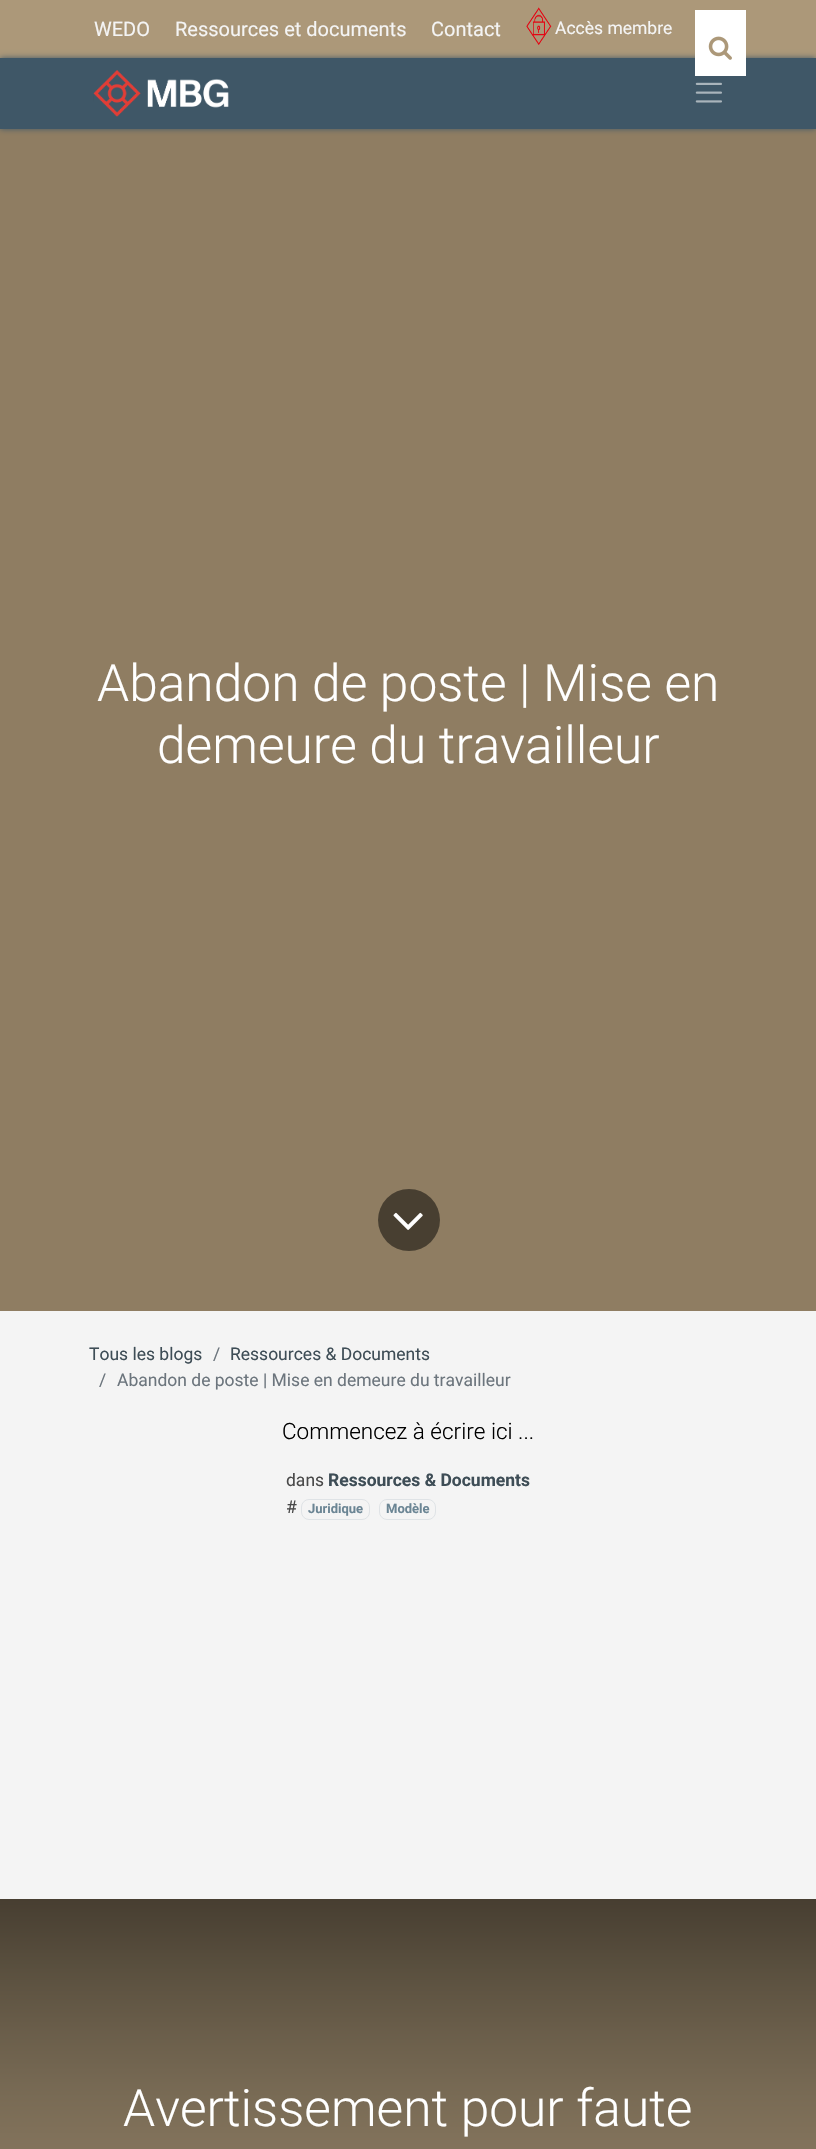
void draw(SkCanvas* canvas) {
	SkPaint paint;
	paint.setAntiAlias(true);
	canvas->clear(0xfff4f4f4);
	paint.setColor(0xffac9879);
	canvas->drawRect(SkRect::MakeXYWH(0, 0, 816, 58), paint);
	SkFont f1(fontMgr->matchFamilyStyle("Roboto", SkFontStyle::Normal()), 20);
	f1.setSubpixel(true);
	paint.setColor(0xfff4f4f4);
	canvas->drawString("WEDO", 94, 36, f1, paint);
	canvas->drawString("Ressources et documents", 175, 36, f1, paint);
	canvas->drawString("Contact", 431, 36, f1, paint);
	canvas->drawImageRect(SkImages::DeferredFromEncodedData(SkData::MakeFromFileName("img1.png")), SkRect::MakeXYWH(526, 7, 26, 38), SkSamplingOptions());
	SkFont f2(fontMgr->matchFamilyStyle("Roboto", SkFontStyle::Normal()), 17.5);
	f2.setSubpixel(true);
	canvas->drawString("Accès membre", 555, 34, f2, paint);
	paint.setColor(0xff8f7d62);
	canvas->drawRect(SkRect::MakeXYWH(0, 129, 816, 1182), paint);
	paint.setColor(0xff3f5767);
	paint.setMaskFilter(SkMaskFilter::MakeBlur(kNormal_SkBlurStyle, 3));
	canvas->drawRect(SkRect::MakeXYWH(0, 58, 816, 71), paint);
	paint.setMaskFilter(nullptr);
	canvas->drawRect(SkRect::MakeXYWH(0, 58, 816, 71), paint);
	paint.setColor(0xffffffff);
	canvas->drawRect(SkRect::MakeXYWH(695, 10, 51, 66), paint);
	canvas->drawImageRect(SkImages::DeferredFromEncodedData(SkData::MakeFromFileName("img2.png")), SkRect::MakeXYWH(708, 36, 24, 24), SkSamplingOptions());
	canvas->drawImageRect(SkImages::DeferredFromEncodedData(SkData::MakeFromFileName("img3.png")), SkRect::MakeXYWH(93, 70, 136, 47), SkSamplingOptions());
	canvas->drawImageRect(SkImages::DeferredFromEncodedData(SkData::MakeFromFileName("img4.png")), SkRect::MakeXYWH(695, 82, 27, 21), SkSamplingOptions());
	SkFont f3(fontMgr->matchFamilyStyle("Roboto", SkFontStyle(300, SkFontStyle::kNormal_Width, SkFontStyle::kUpright_Slant)), 51.5);
	f3.setSubpixel(true);
	canvas->drawString("Abandon de poste | Mise en", 97, 701, f3, paint);
	canvas->drawString("demeure du travailleur", 157, 763, f3, paint);
	paint.setColor(0xff483f31);
	canvas->drawCircle(409, 1220, 31, paint);
	canvas->drawImageRect(SkImages::DeferredFromEncodedData(SkData::MakeFromFileName("img5.png")), SkRect::MakeXYWH(393, 1212, 30, 18), SkSamplingOptions());
	paint.setColor(0xff3e4d56);
	canvas->drawString("Tous les blogs", 89, 1360, f2, paint);
	paint.setColor(0xff6c757d);
	canvas->drawString("/", 213, 1360, f2, paint);
	paint.setColor(0xff3e4d56);
	canvas->drawString("Ressources & Documents", 230, 1360, f2, paint);
	paint.setColor(0xff6c757d);
	canvas->drawString("/", 99, 1386, f2, paint);
	canvas->drawString("Abandon de poste | Mise en demeure du travailleur", 117, 1386, f2, paint);
	SkFont f4(fontMgr->matchFamilyStyle("Roboto", SkFontStyle(300, SkFontStyle::kNormal_Width, SkFontStyle::kUpright_Slant)), 22.5);
	f4.setSubpixel(true);
	paint.setColor(0xff000000);
	canvas->drawString("Commencez à écrire ici ...", 282, 1439, f4, paint);
	paint.setColor(0xff494949);
	canvas->drawString("dans", 286, 1486, f2, paint);
	SkFont f5(fontMgr->matchFamilyStyle("Roboto", SkFontStyle::Bold()), 17.5);
	f5.setSubpixel(true);
	paint.setColor(0xff3e4d56);
	canvas->drawString("Ressources & Documents", 328, 1486, f5, paint);
	paint.setColor(0xff494949);
	canvas->drawString("#", 286, 1513, f2, paint);
	paint.setStroke(true);
	paint.setStrokeWidth(1);
	paint.setColor(0xffdfe3e6);
	canvas->drawRoundRect(SkRect::MakeXYWH(301.5, 1499.5, 68, 20), 7.5, 7.5, paint);
	SkFont f6(fontMgr->matchFamilyStyle("Roboto", SkFontStyle::Bold()), 13);
	f6.setSubpixel(true);
	paint.setStroke(false);
	paint.setColor(0xff6b8594);
	canvas->drawString("Juridique", 308, 1513, f6, paint);
	paint.setStroke(true);
	paint.setColor(0xffdfe3e6);
	canvas->drawRoundRect(SkRect::MakeXYWH(379.5, 1499.5, 56, 20), 7.5, 7.5, paint);
	paint.setStroke(false);
	paint.setColor(0xff6b8594);
	canvas->drawString("Modèle", 386, 1513, f6, paint);
	{
		const SkColor colors[] = {0xff473e31, 0xff594f3e, 0xff675b48, 0xff726550, 0xff796b55, 0xff7f7059, 0xff84745d, 0xff87785f, 0xff8b7a61, 0xff8b7b62, 0xff8c7c62, 0xff8d7d63, 0xff8d7d63};
		const float stops[] = {0, 0.19, 0.34, 0.47, 0.56, 0.65, 0.73, 0.8, 0.86, 0.91, 0.95, 0.98, 1};
		const SkPoint ends[] = {{408, 1899}, {408, 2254}};
		paint.setShader(SkGradientShader::MakeLinear(ends, colors, stops, 13, SkTileMode::kClamp));
		paint.setAlpha(255);
	}
	canvas->drawRect(SkRect::MakeXYWH(0, 1899, 816, 250), paint);
	paint.setShader(nullptr);
	paint.setColor(0xffffffff);
	canvas->drawString("Avertissement pour faute", 123, 2126, f3, paint);
}
